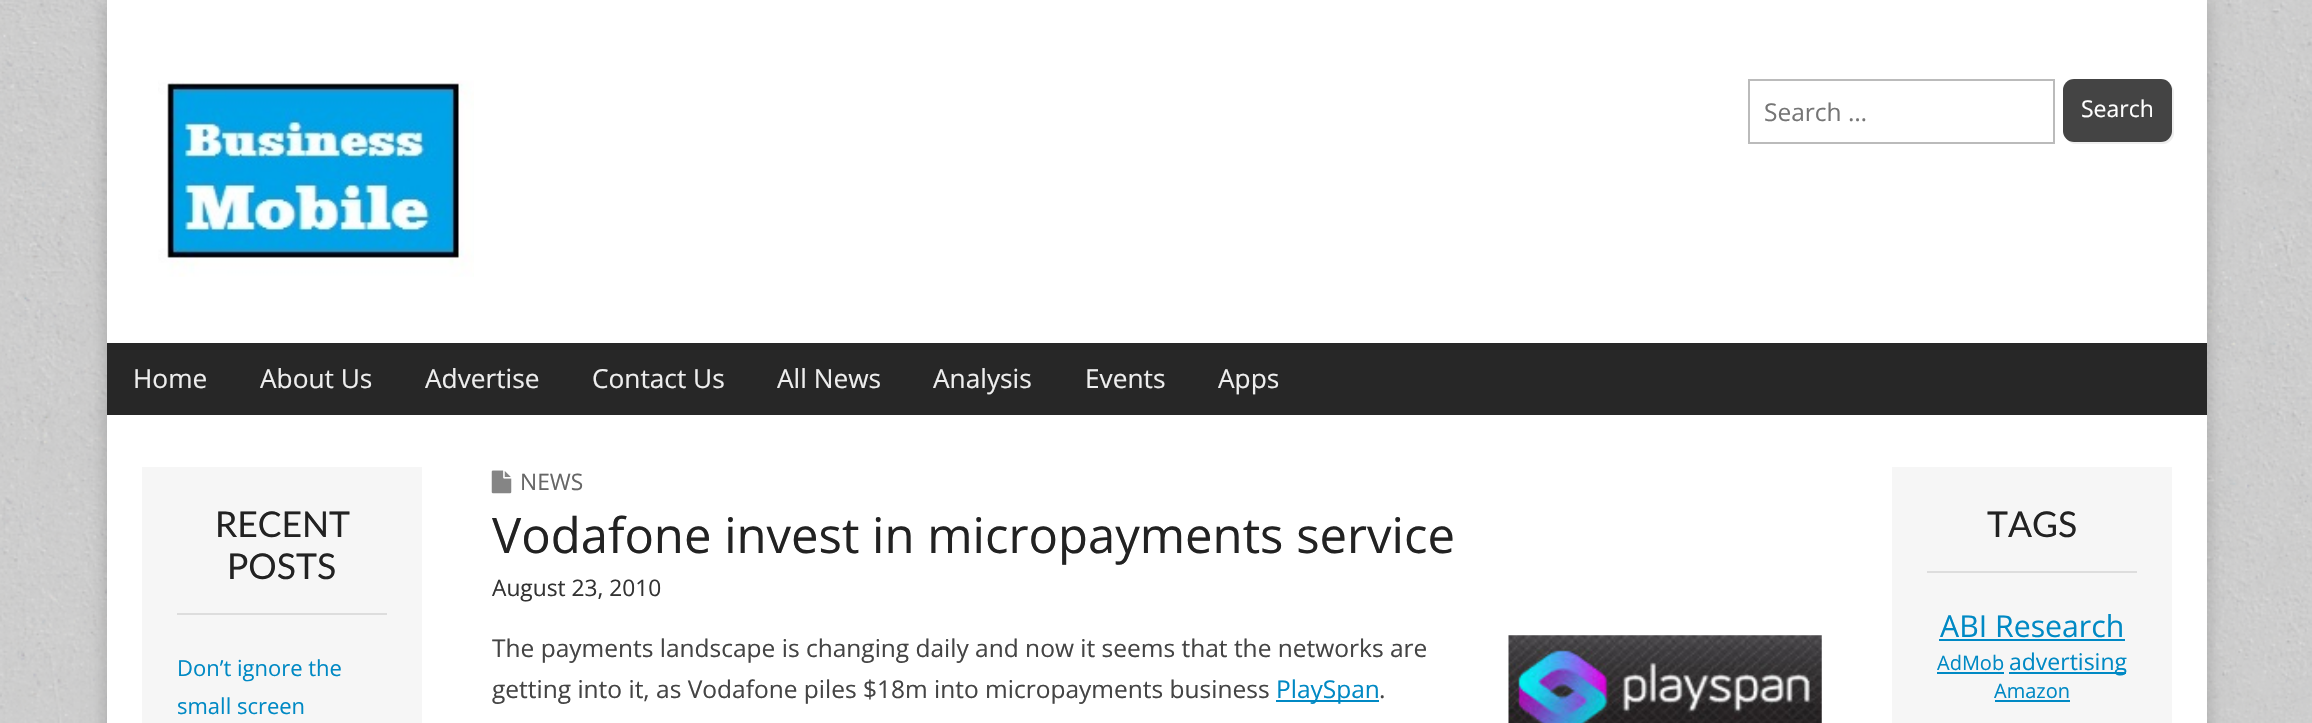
void draw(SkCanvas* canvas) {
	SkPaint paint;
	paint.setAntiAlias(true);
	auto svgPath = [&](const char* data, bool evenOdd = false) {
		SkPath result = *SkParsePath::FromSVGString(data);
		if (evenOdd) result.setFillType(SkPathFillType::kEvenOdd);
		return result;
	};
	canvas->clear(0xffffffff);
	canvas->drawImageRect(SkImages::DeferredFromEncodedData(SkData::MakeFromFileName("img1.png")), SkRect::MakeXYWH(0, 0, 2312, 723), SkSamplingOptions());
	paint.setColor(0x33000000);
	paint.setMaskFilter(SkMaskFilter::MakeBlur(kNormal_SkBlurStyle, 9));
	canvas->drawRect(SkRect::MakeXYWH(107, 0, 2100, 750), paint);
	paint.setMaskFilter(nullptr);
	paint.setColor(0xffffffff);
	canvas->drawRect(SkRect::MakeXYWH(107, 0, 2100, 723), paint);
	canvas->drawImageRect(SkImages::DeferredFromEncodedData(SkData::MakeFromFileName("img2.png")), SkRect::MakeXYWH(158, 80, 316, 197), SkSamplingOptions());
	paint.setStroke(true);
	paint.setStrokeWidth(2);
	paint.setColor(0xffbbbbbb);
	canvas->drawRect(SkRect::MakeXYWH(1749, 80, 305, 63), paint);
	SkFont f1(fontMgr->matchFamilyStyle("Open Sans", SkFontStyle::Normal()), 24.5);
	f1.setSubpixel(true);
	paint.setStroke(false);
	paint.setColor(0xff757575);
	canvas->drawString("Search …", 1764, 121, f1, paint);
	paint.setColor(0xffeeeeee);
	canvas->drawPath(svgPath("M2067 139C2069 142 2072 144 2076 144H2163C2169 144 2174 139 2174 133V92C2174 89 2172 86 2170 84C2171 85 2172 87 2172 89V131C2172 137 2167 142 2161 142H2074C2071 142 2069 141 2067 139Z"), paint);
	paint.setColor(0xff444444);
	canvas->drawRoundRect(SkRect::MakeXYWH(2063, 79, 109, 63), 11, 11, paint);
	SkFont f2(fontMgr->matchFamilyStyle("Open Sans", SkFontStyle::Normal()), 23);
	f2.setSubpixel(true);
	paint.setColor(0xffffffff);
	canvas->drawString("Search", 2081, 117, f2, paint);
	paint.setColor(0xff272727);
	canvas->drawRect(SkRect::MakeXYWH(107, 343, 2100, 72), paint);
	SkFont f3(fontMgr->matchFamilyStyle("Open Sans", SkFontStyle::Normal()), 26.25);
	f3.setSubpixel(true);
	paint.setColor(0xffeeeeee);
	canvas->drawString("Home", 133, 388, f3, paint);
	canvas->drawString("About Us", 260, 388, f3, paint);
	canvas->drawString("Advertise", 425, 388, f3, paint);
	canvas->drawString("Contact Us", 592, 388, f3, paint);
	canvas->drawString("All News", 777, 388, f3, paint);
	canvas->drawString("Analysis", 933, 388, f3, paint);
	canvas->drawString("Events", 1085, 388, f3, paint);
	canvas->drawString("Apps", 1218, 388, f3, paint);
	paint.setColor(0xfff6f6f6);
	canvas->drawRect(SkRect::MakeXYWH(142, 467, 280, 256), paint);
	paint.setColor(0xffdddddd);
	canvas->drawRect(SkRect::MakeXYWH(177, 613, 210, 2), paint);
	SkFont f4(fontMgr->matchFamilyStyle("Lato", SkFontStyle::Normal()), 35.5);
	f4.setSubpixel(true);
	paint.setColor(0xff222222);
	canvas->drawString("RECENT", 215, 537, f4, paint);
	canvas->drawString("POSTS", 227, 579, f4, paint);
	SkFont f5(fontMgr->matchFamilyStyle("Open Sans", SkFontStyle::Normal()), 22);
	f5.setSubpixel(true);
	paint.setColor(0xff0089c4);
	canvas->drawString("Don’t ignore the", 177, 676, f5, paint);
	canvas->drawString("small screen", 177, 714, f5, paint);
	canvas->drawImageRect(SkImages::DeferredFromEncodedData(SkData::MakeFromFileName("img3.png")), SkRect::MakeXYWH(491, 470, 21, 24), SkSamplingOptions());
	SkFont f6(fontMgr->matchFamilyStyle("Open Sans", SkFontStyle::Normal()), 22.75);
	f6.setSubpixel(true);
	paint.setColor(0xff666666);
	canvas->drawString("NEWS", 520, 490, f6, paint);
	SkFont f7(fontMgr->matchFamilyStyle("Open Sans", SkFontStyle::Normal()), 49);
	f7.setSubpixel(true);
	paint.setColor(0xff222222);
	canvas->drawString("Vodafone invest in micropayments service", 492, 553, f7, paint);
	paint.setColor(0xff333333);
	canvas->drawString("August 23, 2010", 492, 596, f6, paint);
	paint.setColor(0xff444444);
	canvas->drawString("The payments landscape is changing daily and now it seems that the networks are", 492, 657, f1, paint);
	canvas->drawImageRect(SkImages::DeferredFromEncodedData(SkData::MakeFromFileName("img4.png")), SkRect::MakeXYWH(1508, 635, 314, 88), SkSamplingOptions());
	canvas->drawString("getting into it, as Vodafone piles $18m into micropayments business", 492, 698, f1, paint);
	paint.setColor(0xff0089c4);
	canvas->drawRect(SkRect::MakeXYWH(1276, 700, 103, 2), paint);
	canvas->drawString("PlaySpan", 1276, 698, f1, paint);
	paint.setColor(0xff444444);
	canvas->drawString(".", 1379, 698, f1, paint);
	paint.setColor(0xfff6f6f6);
	canvas->drawRect(SkRect::MakeXYWH(1892, 467, 280, 256), paint);
	paint.setColor(0xffdddddd);
	canvas->drawRect(SkRect::MakeXYWH(1927, 571, 210, 2), paint);
	paint.setColor(0xff222222);
	canvas->drawString("TAGS", 1987, 537, f4, paint);
	SkFont f8(fontMgr->matchFamilyStyle("Open Sans", SkFontStyle::Normal()), 30.25);
	f8.setSubpixel(true);
	paint.setColor(0xff0089c4);
	canvas->drawString("ABI Research", 1940, 637, f8, paint);
	canvas->drawRect(SkRect::MakeXYWH(1939, 639, 186, 2), paint);
	SkFont f9(fontMgr->matchFamilyStyle("Open Sans", SkFontStyle::Normal()), 20);
	f9.setSubpixel(true);
	canvas->drawString("AdMob", 1937, 670, f9, paint);
	canvas->drawRect(SkRect::MakeXYWH(1937, 672, 67, 2), paint);
	canvas->drawRect(SkRect::MakeXYWH(2009, 672, 117, 2), paint);
	canvas->drawString("advertising", 2009, 670, f2, paint);
	canvas->drawString("Amazon", 1994, 698, f9, paint);
	canvas->drawRect(SkRect::MakeXYWH(1995, 700, 75, 2), paint);
}
